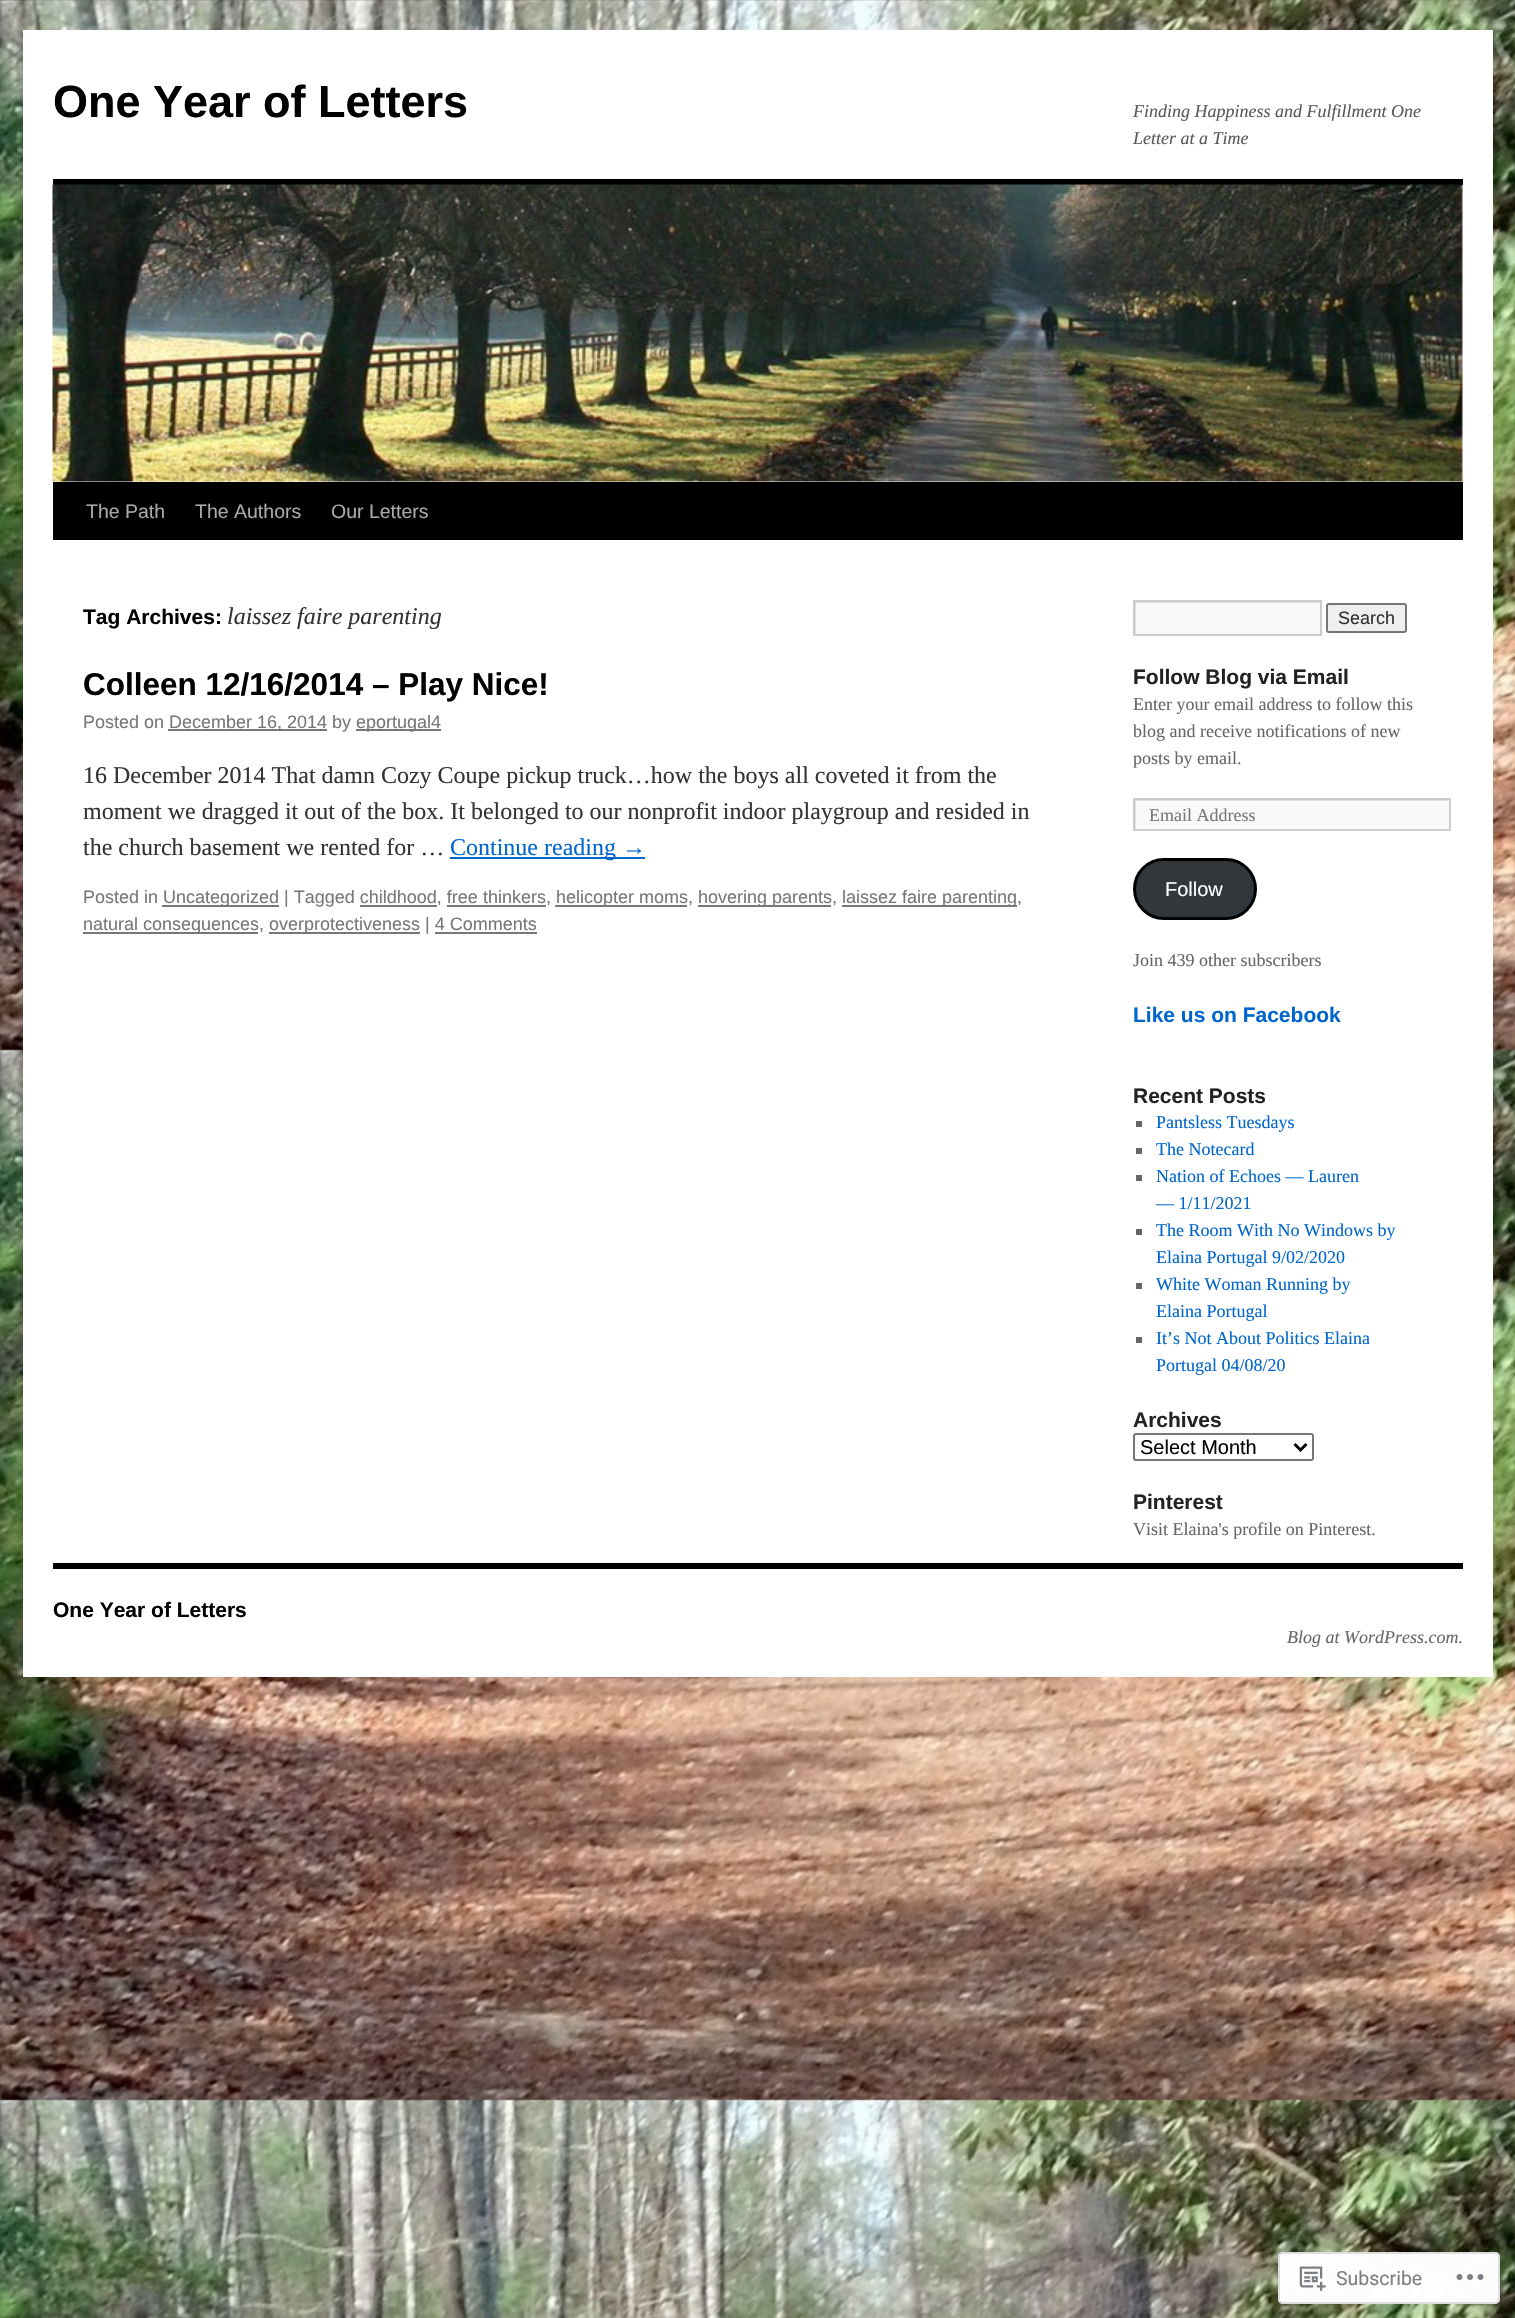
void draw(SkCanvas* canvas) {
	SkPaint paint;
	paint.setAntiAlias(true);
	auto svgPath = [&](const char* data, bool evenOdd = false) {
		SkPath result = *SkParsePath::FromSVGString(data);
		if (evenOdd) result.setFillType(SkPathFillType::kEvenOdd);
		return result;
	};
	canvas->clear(0xffffffff);
	canvas->drawImageRect(SkImages::DeferredFromEncodedData(SkData::MakeFromFileName("img1.png")), SkRect::MakeXYWH(0, 0, 1515, 2318), SkSamplingOptions());
	paint.setColor(0xffffffff);
	canvas->drawRect(SkRect::MakeXYWH(23, 30, 1470, 1647), paint);
	SkFont f1(fontMgr->matchFamilyStyle("Liberation Sans", SkFontStyle::Bold()), 45);
	f1.setSubpixel(true);
	paint.setColor(0xff000000);
	canvas->drawString("One Year of Letters", 53, 117, f1, paint);
	SkFont f2(fontMgr->matchFamilyStyle("Liberation Serif", SkFontStyle::Italic()), 18);
	f2.setSubpixel(true);
	paint.setColor(0xff595959);
	canvas->drawString("Finding Happiness and Fulfillment One", 1133, 117, f2, paint);
	canvas->drawString("Letter at a Time", 1133, 144, f2, paint);
	paint.setColor(0xff000000);
	canvas->drawRect(SkRect::MakeXYWH(53, 179, 1410, 6), paint);
	canvas->drawRect(SkRect::MakeXYWH(53, 482, 1410, 58), paint);
	canvas->drawImageRect(SkImages::DeferredFromEncodedData(SkData::MakeFromFileName("img2.png")), SkRect::MakeXYWH(52, 184, 1411, 298), SkSamplingOptions());
	SkFont f3(fontMgr->matchFamilyStyle("Liberation Sans", SkFontStyle::Normal()), 19.5);
	f3.setSubpixel(true);
	paint.setColor(0xffaaaaaa);
	canvas->drawString("The Path", 86, 518, f3, paint);
	canvas->drawString("The Authors", 195, 518, f3, paint);
	canvas->drawString("Our Letters", 331, 518, f3, paint);
	SkFont f4(fontMgr->matchFamilyStyle("Liberation Sans", SkFontStyle::Bold()), 21);
	f4.setSubpixel(true);
	paint.setColor(0xff000000);
	canvas->drawString("Tag Archives:", 83, 624, f4, paint);
	SkFont f5(fontMgr->matchFamilyStyle("Liberation Serif", SkFontStyle::Italic()), 24);
	f5.setSubpixel(true);
	paint.setColor(0xff333333);
	canvas->drawString("laissez faire parenting", 227, 624, f5, paint);
	SkFont f6(fontMgr->matchFamilyStyle("Liberation Sans", SkFontStyle::Bold()), 31.5);
	f6.setSubpixel(true);
	paint.setColor(0xff000000);
	canvas->drawString("Colleen 12/16/2014 – Play Nice!", 83, 695, f6, paint);
	SkFont f7(fontMgr->matchFamilyStyle("Liberation Sans", SkFontStyle::Normal()), 18);
	f7.setSubpixel(true);
	paint.setColor(0xff777777);
	canvas->drawString("Posted on", 83, 728, f7, paint);
	canvas->drawRect(SkRect::MakeXYWH(168, 729, 159, 2), paint);
	canvas->drawString("December 16, 2014 by", 169, 728, f7, paint);
	canvas->drawRect(SkRect::MakeXYWH(356, 729, 85, 2), paint);
	canvas->drawString("eportugal4", 356, 728, f7, paint);
	SkFont f8(fontMgr->matchFamilyStyle("Liberation Serif", SkFontStyle::Normal()), 24);
	f8.setSubpixel(true);
	paint.setColor(0xff333333);
	canvas->drawString("16 December 2014 That damn Cozy Coupe pickup truck…how the boys all coveted it from the", 83, 783, f8, paint);
	canvas->drawString("moment we dragged it out of the box. It belonged to our nonprofit indoor playgroup and resided in", 83, 819, f8, paint);
	canvas->drawString("the church basement we rented for …", 83, 855, f8, paint);
	paint.setColor(0xff0066cc);
	canvas->drawRect(SkRect::MakeXYWH(450, 857, 195, 2), paint);
	canvas->drawString("Continue reading →", 450, 855, f8, paint);
	paint.setColor(0xff777777);
	canvas->drawString("Posted in", 83, 903, f7, paint);
	canvas->drawRect(SkRect::MakeXYWH(162, 905, 117, 2), paint);
	canvas->drawString("Uncategorized | Tagged childhood, free thinkers,", 163, 903, f7, paint);
	canvas->drawRect(SkRect::MakeXYWH(555, 905, 132, 2), paint);
	canvas->drawString("helicopter moms,", 556, 903, f7, paint);
	canvas->drawRect(SkRect::MakeXYWH(447, 905, 99, 2), paint);
	canvas->drawRect(SkRect::MakeXYWH(698, 905, 133, 2), paint);
	canvas->drawString("hovering parents,", 698, 903, f7, paint);
	canvas->drawRect(SkRect::MakeXYWH(842, 905, 175, 2), paint);
	canvas->drawString("laissez faire parenting,", 842, 903, f7, paint);
	canvas->drawRect(SkRect::MakeXYWH(83, 932, 175, 2), paint);
	canvas->drawString("natural consequences,", 83, 930, f7, paint);
	canvas->drawRect(SkRect::MakeXYWH(269, 932, 151, 2), paint);
	canvas->drawString("overprotectiveness | 4 Comments", 269, 930, f7, paint);
	canvas->drawRect(SkRect::MakeXYWH(360, 905, 77, 2), paint);
	canvas->drawRect(SkRect::MakeXYWH(435, 932, 102, 2), paint);
	paint.setColor(0xfff9f9f9);
	canvas->drawRect(SkRect::MakeXYWH(1136, 603, 184, 31), paint);
	canvas->save();
	canvas->clipRect(SkRect::MakeXYWH(1134, 602, 186, 33));
	paint.setColor(0xffe0e0e0);
	canvas->drawPath(svgPath("M986 453H1468V783H986ZM1136 603H1322V636H1136Z", true), paint);
	canvas->restore();
	paint.setStroke(true);
	paint.setStrokeWidth(2);
	paint.setColor(0xffcccccc);
	canvas->drawRect(SkRect::MakeXYWH(1134, 601, 187, 34), paint);
	paint.setStroke(false);
	paint.setColor(0xffefefef);
	canvas->drawRoundRect(SkRect::MakeXYWH(1327, 604, 79, 28), 2, 2, paint);
	paint.setStroke(true);
	paint.setColor(0xff767676);
	canvas->drawRoundRect(SkRect::MakeXYWH(1327, 604, 79, 28), 2, 2, paint);
	paint.setStroke(false);
	paint.setColor(0xff333333);
	canvas->drawString("Search", 1338, 624, f7, paint);
	paint.setColor(0xff222222);
	canvas->drawString("Follow Blog via Email", 1133, 684, f4, paint);
	SkFont f9(fontMgr->matchFamilyStyle("Liberation Serif", SkFontStyle::Normal()), 18);
	f9.setSubpixel(true);
	paint.setColor(0xff666666);
	canvas->drawString("Enter your email address to follow this", 1133, 710, f9, paint);
	canvas->drawString("blog and receive notifications of new", 1133, 737, f9, paint);
	canvas->drawString("posts by email.", 1133, 764, f9, paint);
	paint.setColor(0xfff9f9f9);
	canvas->drawRect(SkRect::MakeXYWH(1136, 801, 313, 28), paint);
	canvas->save();
	canvas->clipRect(SkRect::MakeXYWH(1134, 800, 315, 30));
	paint.setColor(0xffe0e0e0);
	canvas->drawPath(svgPath("M986 651H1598V978H986ZM1136 801H1450V831H1136Z", true), paint);
	canvas->restore();
	paint.setStroke(true);
	paint.setColor(0xffcccccc);
	canvas->drawRect(SkRect::MakeXYWH(1134, 799, 316, 31), paint);
	paint.setStroke(false);
	paint.setColor(0xff777777);
	canvas->drawString("Email Address", 1149, 821, f9, paint);
	paint.setColor(0xff32373c);
	canvas->drawRoundRect(SkRect::MakeXYWH(1134.5, 859.5, 121, 59), 29.5, 29.5, paint);
	paint.setStroke(true);
	paint.setStrokeWidth(3);
	paint.setColor(0xff000000);
	canvas->drawRoundRect(SkRect::MakeXYWH(1134.5, 859.5, 121, 59), 29.5, 29.5, paint);
	SkFont f10(fontMgr->matchFamilyStyle("Liberation Sans", SkFontStyle::Normal()), 20);
	f10.setSubpixel(true);
	paint.setStroke(false);
	paint.setColor(0xffffffff);
	canvas->drawString("Follow", 1165, 896, f10, paint);
	paint.setColor(0xff666666);
	canvas->drawString("Join 439 other subscribers", 1133, 966, f9, paint);
	paint.setColor(0xff0066cc);
	canvas->drawString("Like us on Facebook", 1133, 1022, f4, paint);
	paint.setColor(0xff222222);
	canvas->drawString("Recent Posts", 1133, 1103, f4, paint);
	paint.setColor(0xff666666);
	canvas->drawRect(SkRect::MakeXYWH(1136, 1121, 6, 6), paint);
	paint.setColor(0xff0066cc);
	canvas->drawString("Pantsless Tuesdays", 1156, 1128, f9, paint);
	paint.setColor(0xff666666);
	canvas->drawRect(SkRect::MakeXYWH(1136, 1148, 6, 6), paint);
	paint.setColor(0xff0066cc);
	canvas->drawString("The Notecard", 1156, 1155, f9, paint);
	paint.setColor(0xff666666);
	canvas->drawRect(SkRect::MakeXYWH(1136, 1175, 6, 6), paint);
	paint.setColor(0xff0066cc);
	canvas->drawString("Nation of Echoes — Lauren", 1156, 1182, f9, paint);
	canvas->drawString("— 1/11/2021", 1156, 1209, f9, paint);
	paint.setColor(0xff666666);
	canvas->drawRect(SkRect::MakeXYWH(1136, 1229, 6, 6), paint);
	paint.setColor(0xff0066cc);
	canvas->drawString("The Room With No Windows by", 1156, 1236, f9, paint);
	canvas->drawString("Elaina Portugal 9/02/2020", 1156, 1263, f9, paint);
	paint.setColor(0xff666666);
	canvas->drawRect(SkRect::MakeXYWH(1136, 1283, 6, 6), paint);
	paint.setColor(0xff0066cc);
	canvas->drawString("White Woman Running by", 1156, 1290, f9, paint);
	canvas->drawString("Elaina Portugal", 1156, 1317, f9, paint);
	paint.setColor(0xff666666);
	canvas->drawRect(SkRect::MakeXYWH(1136, 1337, 6, 6), paint);
	paint.setColor(0xff0066cc);
	canvas->drawString("It’s Not About Politics Elaina", 1156, 1344, f9, paint);
	canvas->drawString("Portugal 04/08/20", 1156, 1371, f9, paint);
	paint.setColor(0xff222222);
	canvas->drawString("Archives", 1133, 1427, f4, paint);
	paint.setStroke(true);
	paint.setStrokeWidth(2);
	paint.setColor(0xff767676);
	canvas->drawRoundRect(SkRect::MakeXYWH(1134, 1434, 179, 26), 2, 2, paint);
	paint.setStrokeWidth(3);
	paint.setColor(0xff000000);
	canvas->drawPath(svgPath("M1294.5 1444L1300.5 1450L1306.5 1444"), paint);
	paint.setStroke(false);
	canvas->drawString("Select Month", 1140, 1454, f10, paint);
	paint.setColor(0xff222222);
	canvas->drawString("Pinterest", 1133, 1509, f4, paint);
	paint.setColor(0xff666666);
	canvas->drawString("Visit Elaina's profile on Pinterest.", 1133, 1535, f9, paint);
	paint.setColor(0xff000000);
	canvas->drawRect(SkRect::MakeXYWH(53, 1563, 1410, 6), paint);
	canvas->drawString("One Year of Letters", 53, 1617, f4, paint);
	paint.setColor(0xff666666);
	canvas->drawString("Blog at WordPress.com.", 1287, 1643, f2, paint);
	paint.setColor(0xfaffffff);
	canvas->drawRoundRect(SkRect::MakeXYWH(1278, 2252, 222, 52), 5, 5, paint);
	paint.setStroke(true);
	paint.setStrokeWidth(2);
	paint.setColor(0xfadcdcde);
	canvas->drawRoundRect(SkRect::MakeXYWH(1279, 2253, 220, 50), 4, 4, paint);
	canvas->drawImageRect(SkImages::DeferredFromEncodedData(SkData::MakeFromFileName("img3.png")), SkRect::MakeXYWH(1299, 2266, 27, 25), SkSamplingOptions());
	SkFont f11(fontMgr->matchFamilyStyle("Roboto", SkFontStyle::Normal()), 19.5);
	f11.setSubpixel(true);
	paint.setStroke(false);
	paint.setColor(0xff7b7f84);
	canvas->drawString("Subscribe", 1336, 2285, f11, paint);
	canvas->drawImageRect(SkImages::DeferredFromEncodedData(SkData::MakeFromFileName("img4.png")), SkRect::MakeXYWH(1456, 2274, 28, 6), SkSamplingOptions());
}
